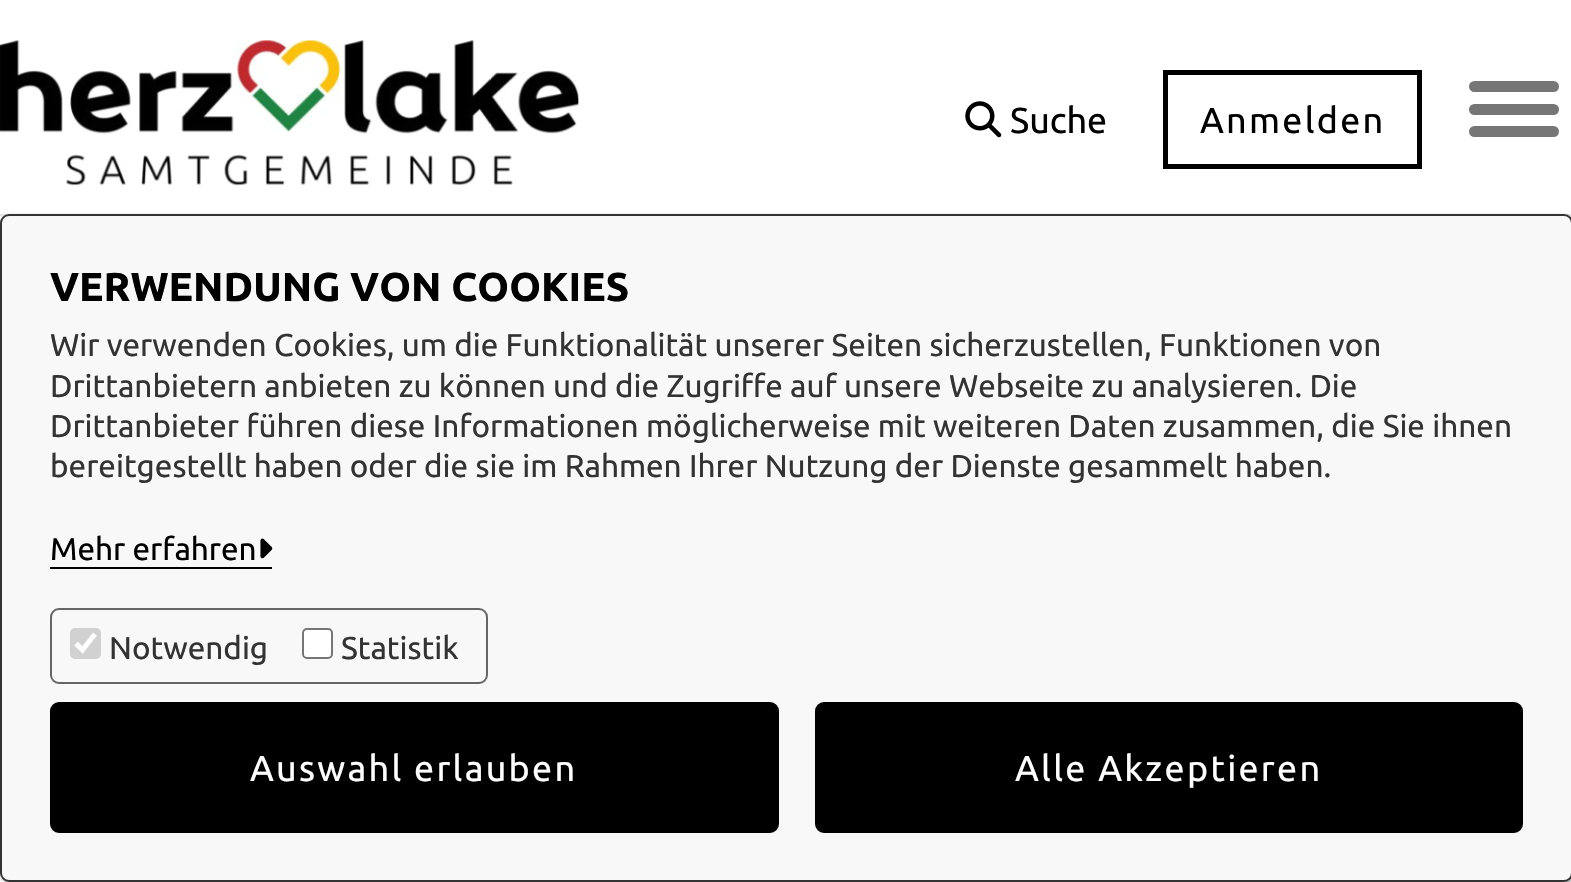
void draw(SkCanvas* canvas) {
	SkPaint paint;
	paint.setAntiAlias(true);
	auto spacedText = [&](const char* s, float x, float y, const SkFont& font, const SkPaint& ink, float letter, float word) {
		std::vector<SkGlyphID> glyphs(font.countText(s, strlen(s), SkTextEncoding::kUTF8));
		std::vector<float> xs(glyphs.size());
		font.textToGlyphs(s, strlen(s), SkTextEncoding::kUTF8, glyphs);
		font.getXPos(glyphs, xs, x);
		float extra = 0;
		for (size_t i = 0; i < glyphs.size(); i++) {
			xs[i] += extra;
			extra += letter + word * (glyphs[i] == font.unicharToGlyph(' '));
		}
		canvas->drawTextBlob(SkTextBlob::MakeFromPosHGlyphs(glyphs, xs, y, font), 0, 0, ink);
	};
	auto svgPath = [&](const char* data, bool evenOdd = false) {
		SkPath result = *SkParsePath::FromSVGString(data);
		if (evenOdd) result.setFillType(SkPathFillType::kEvenOdd);
		return result;
	};
	canvas->clear(0xffffffff);
	paint.setColor(0xffe6e6e6);
	canvas->drawRect(SkRect::MakeXYWH(0, 214, 1571, 2), paint);
	canvas->drawImageRect(SkImages::DeferredFromEncodedData(SkData::MakeFromFileName("img1.png")), SkRect::MakeXYWH(0, 40, 579, 146), SkSamplingOptions());
	canvas->drawImageRect(SkImages::DeferredFromEncodedData(SkData::MakeFromFileName("img2.png")), SkRect::MakeXYWH(965, 101, 37, 37), SkSamplingOptions());
	SkFont f1(fontMgr->matchFamilyStyle("Ubuntu", SkFontStyle::Normal()), 36);
	f1.setSubpixel(true);
	paint.setColor(0xff000000);
	canvas->drawString("Suche", 1010, 133, f1, paint);
	paint.setStroke(true);
	paint.setStrokeWidth(5);
	canvas->drawRect(SkRect::MakeXYWH(1165.5, 72.5, 254, 94), paint);
	paint.setStroke(false);
	spacedText("Anmelden", 1200, 133, f1, paint, 2.25, 0);
	paint.setColor(0xff767676);
	canvas->drawRoundRect(SkRect::MakeXYWH(1469, 104, 90, 11), 5.5, 5.5, paint);
	canvas->drawRoundRect(SkRect::MakeXYWH(1469, 81, 90, 11), 5.5, 5.5, paint);
	canvas->drawRoundRect(SkRect::MakeXYWH(1469, 126, 90, 11), 5.5, 5.5, paint);
	paint.setColor(0x54000000);
	paint.setMaskFilter(SkMaskFilter::MakeBlur(kNormal_SkBlurStyle, 2));
	canvas->drawRoundRect(SkRect::MakeXYWH(2, 216, 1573, 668), 9, 9, paint);
	paint.setMaskFilter(nullptr);
	paint.setColor(0xfff8f8f8);
	canvas->drawRoundRect(SkRect::MakeXYWH(1, 215, 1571, 666), 8, 8, paint);
	paint.setStroke(true);
	paint.setStrokeWidth(2);
	paint.setColor(0xff333333);
	canvas->drawRoundRect(SkRect::MakeXYWH(1, 215, 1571, 666), 8, 8, paint);
	SkFont f2(fontMgr->matchFamilyStyle("Ubuntu", SkFontStyle::Bold()), 40.3);
	f2.setSubpixel(true);
	paint.setStroke(false);
	paint.setColor(0xff000000);
	canvas->drawString("VERWENDUNG VON COOKIES", 50, 301, f2, paint);
	SkFont f3(fontMgr->matchFamilyStyle("Ubuntu", SkFontStyle::Normal()), 31.5);
	f3.setSubpixel(true);
	paint.setColor(0xff333333);
	canvas->drawString("Wir verwenden Cookies, um die Funktionalität unserer Seiten sicherzustellen, Funktionen von", 50, 356, f3, paint);
	canvas->drawString("Drittanbietern anbieten zu können und die Zugriffe auf unsere Webseite zu analysieren. Die", 50, 397, f3, paint);
	canvas->drawString("Drittanbieter führen diese Informationen möglicherweise mit weiteren Daten zusammen, die Sie ihnen", 50, 437, f3, paint);
	canvas->drawString("bereitgestellt haben oder die sie im Rahmen Ihrer Nutzung der Dienste gesammelt haben.", 50, 477, f3, paint);
	paint.setColor(0xff000000);
	canvas->drawString("Mehr erfahren", 50, 560, f3, paint);
	canvas->drawRect(SkRect::MakeXYWH(50, 567, 222, 2), paint);
	canvas->drawImageRect(SkImages::DeferredFromEncodedData(SkData::MakeFromFileName("img3.png")), SkRect::MakeXYWH(260, 538, 13, 21), SkSamplingOptions());
	paint.setStroke(true);
	paint.setColor(0xff666666);
	canvas->drawRoundRect(SkRect::MakeXYWH(51, 609, 436, 74), 8, 8, paint);
	paint.setStroke(false);
	paint.setColor(0xffd1d1d1);
	canvas->drawRoundRect(SkRect::MakeXYWH(70, 628, 31, 31), 5, 5, paint);
	paint.setStroke(true);
	paint.setStrokeWidth(5);
	paint.setColor(0xffffffff);
	canvas->drawPath(svgPath("M76 643.5L82.5 650L95 634"), paint);
	paint.setStroke(false);
	paint.setColor(0xff333333);
	canvas->drawString("Notwendig", 109, 659, f3, paint);
	paint.setColor(0xffffffff);
	canvas->drawRoundRect(SkRect::MakeXYWH(303, 629, 29, 29), 4, 4, paint);
	paint.setStroke(true);
	paint.setStrokeWidth(2);
	paint.setColor(0xff767676);
	canvas->drawRoundRect(SkRect::MakeXYWH(303, 629, 29, 29), 4, 4, paint);
	paint.setStroke(false);
	paint.setColor(0xff333333);
	canvas->drawString("Statistik", 341, 659, f3, paint);
	paint.setColor(0xff000000);
	canvas->drawRoundRect(SkRect::MakeXYWH(51, 703, 727, 129), 8, 8, paint);
	paint.setStroke(true);
	canvas->drawRoundRect(SkRect::MakeXYWH(51, 703, 727, 129), 8, 8, paint);
	paint.setStroke(false);
	paint.setColor(0xffffffff);
	spacedText("Auswahl erlauben", 250, 781, f1, paint, 2.25, 0);
	paint.setColor(0xff000000);
	canvas->drawRoundRect(SkRect::MakeXYWH(816, 703, 706, 129), 8, 8, paint);
	paint.setStroke(true);
	canvas->drawRoundRect(SkRect::MakeXYWH(816, 703, 706, 129), 8, 8, paint);
	paint.setStroke(false);
	paint.setColor(0xffffffff);
	spacedText("Alle Akzeptieren", 1015, 781, f1, paint, 2.25, 0);
}
